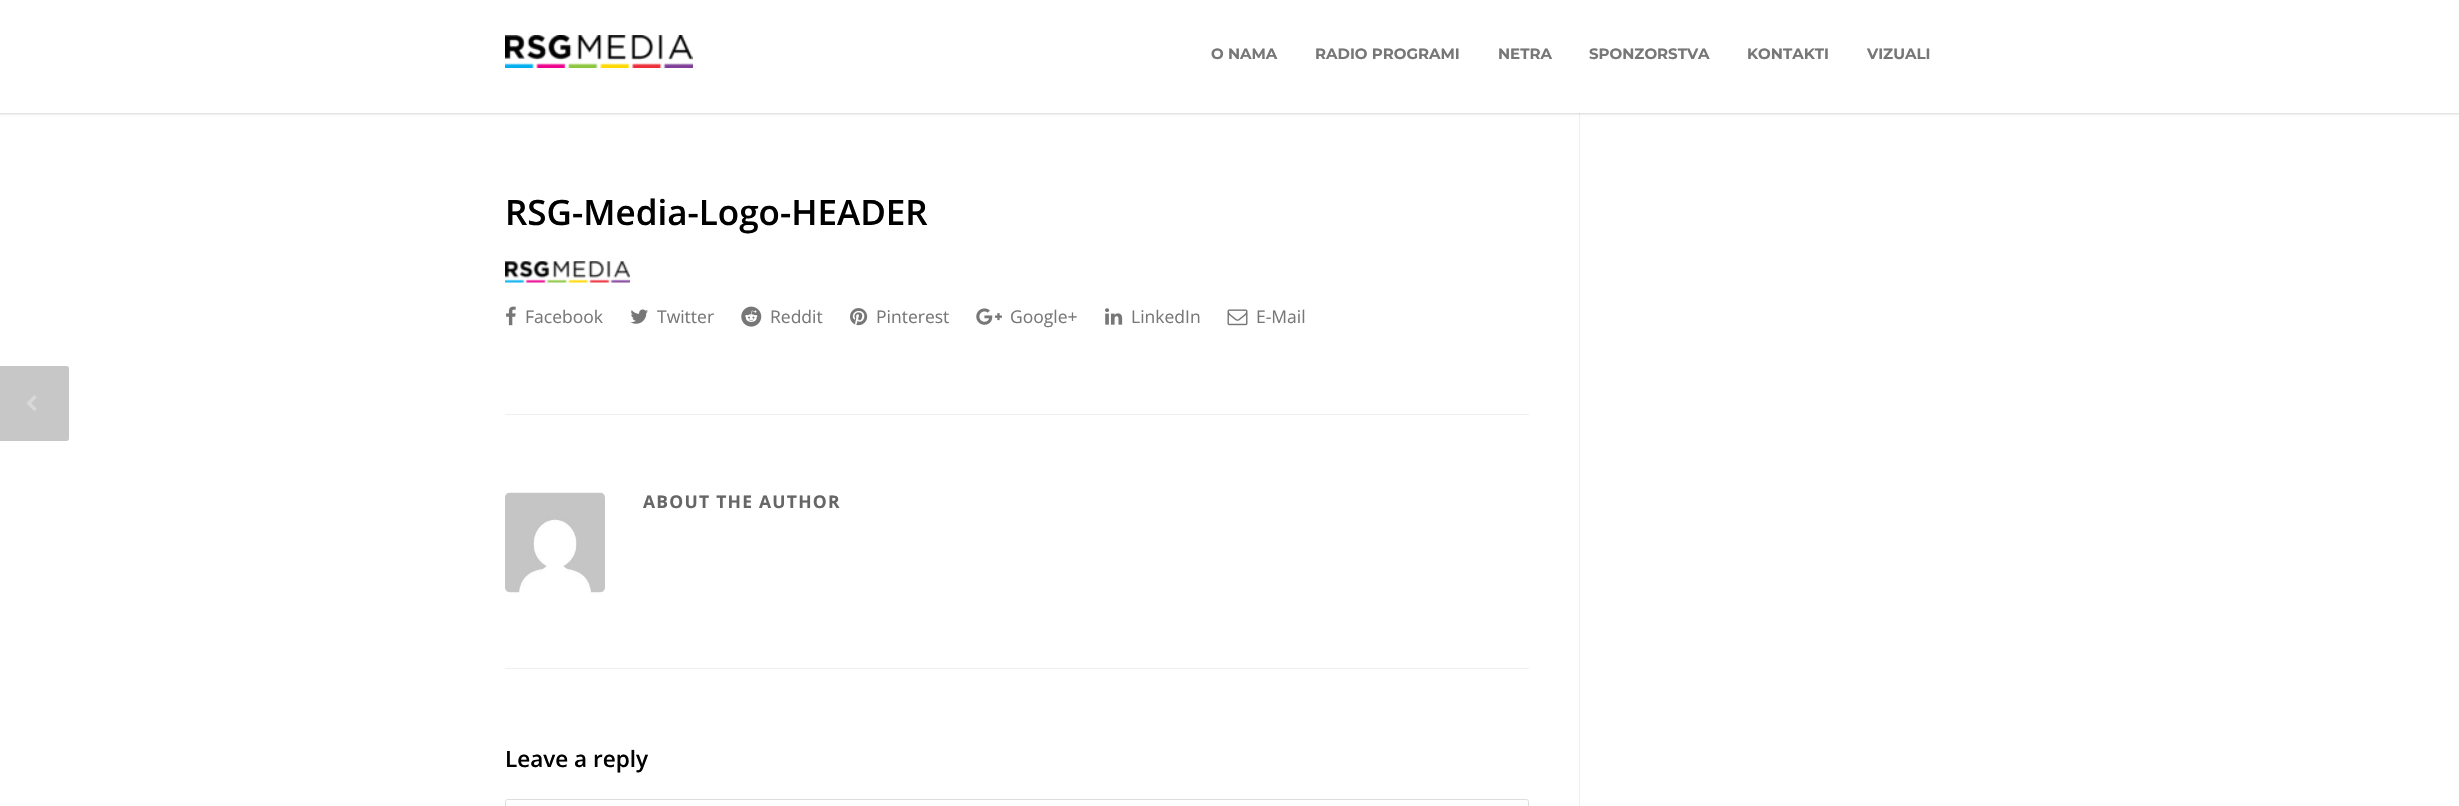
void draw(SkCanvas* canvas) {
	SkPaint paint;
	paint.setAntiAlias(true);
	auto spacedText = [&](const char* s, float x, float y, const SkFont& font, const SkPaint& ink, float letter, float word) {
		std::vector<SkGlyphID> glyphs(font.countText(s, strlen(s), SkTextEncoding::kUTF8));
		std::vector<float> xs(glyphs.size());
		font.textToGlyphs(s, strlen(s), SkTextEncoding::kUTF8, glyphs);
		font.getXPos(glyphs, xs, x);
		float extra = 0;
		for (size_t i = 0; i < glyphs.size(); i++) {
			xs[i] += extra;
			extra += letter + word * (glyphs[i] == font.unicharToGlyph(' '));
		}
		canvas->drawTextBlob(SkTextBlob::MakeFromPosHGlyphs(glyphs, xs, y, font), 0, 0, ink);
	};
	auto svgPath = [&](const char* data, bool evenOdd = false) {
		SkPath result = *SkParsePath::FromSVGString(data);
		if (evenOdd) result.setFillType(SkPathFillType::kEvenOdd);
		return result;
	};
	canvas->clear(0xffffffff);
	paint.setColor(0xffefefef);
	canvas->drawRect(SkRect::MakeXYWH(1579, 113, 1, 693), paint);
	paint.setColor(0x29000000);
	paint.setMaskFilter(SkMaskFilter::MakeBlur(kNormal_SkBlurStyle, 1));
	canvas->drawRect(SkRect::MakeXYWH(-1, -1, 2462, 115), paint);
	paint.setMaskFilter(nullptr);
	paint.setColor(0xffffffff);
	canvas->drawRect(SkRect::MakeXYWH(0, 0, 2459, 113), paint);
	canvas->drawImageRect(SkImages::DeferredFromEncodedData(SkData::MakeFromFileName("img1.png")), SkRect::MakeXYWH(505, 35, 188, 33), SkSamplingOptions());
	SkFont f1(fontMgr->matchFamilyStyle("Montserrat", SkFontStyle::Bold()), 15);
	f1.setSubpixel(true);
	paint.setColor(0xff777777);
	canvas->drawString("O NAMA", 1211, 59, f1, paint);
	canvas->drawString("RADIO PROGRAMI", 1315, 59, f1, paint);
	canvas->drawString("NETRA", 1498, 59, f1, paint);
	canvas->drawString("SPONZORSTVA", 1589, 59, f1, paint);
	canvas->drawString("KONTAKTI", 1747, 59, f1, paint);
	canvas->drawString("VIZUALI", 1867, 59, f1, paint);
	SkFont f2(fontMgr->matchFamilyStyle("Open Sans", SkFontStyle(600, SkFontStyle::kNormal_Width, SkFontStyle::kUpright_Slant)), 35);
	f2.setSubpixel(true);
	paint.setColor(0xff000000);
	canvas->drawString("RSG-Media-Logo-HEADER", 505, 225, f2, paint);
	canvas->drawImageRect(SkImages::DeferredFromEncodedData(SkData::MakeFromFileName("img2.png")), SkRect::MakeXYWH(505, 261, 125, 22), SkSamplingOptions());
	canvas->drawImageRect(SkImages::DeferredFromEncodedData(SkData::MakeFromFileName("img3.png")), SkRect::MakeXYWH(506, 306, 10, 20), SkSamplingOptions());
	SkFont f3(fontMgr->matchFamilyStyle("Open Sans", SkFontStyle::Normal()), 17.5);
	f3.setSubpixel(true);
	paint.setColor(0xff777777);
	canvas->drawString("Facebook", 525, 323, f3, paint);
	canvas->drawImageRect(SkImages::DeferredFromEncodedData(SkData::MakeFromFileName("img4.png")), SkRect::MakeXYWH(630, 309, 18, 15), SkSamplingOptions());
	canvas->drawString("Twitter", 657, 323, f3, paint);
	canvas->drawImageRect(SkImages::DeferredFromEncodedData(SkData::MakeFromFileName("img5.png")), SkRect::MakeXYWH(741, 306, 21, 21), SkSamplingOptions());
	canvas->drawString("Reddit", 770, 323, f3, paint);
	canvas->drawImageRect(SkImages::DeferredFromEncodedData(SkData::MakeFromFileName("img6.png")), SkRect::MakeXYWH(850, 308, 18, 18), SkSamplingOptions());
	canvas->drawString("Pinterest", 876, 323, f3, paint);
	canvas->drawImageRect(SkImages::DeferredFromEncodedData(SkData::MakeFromFileName("img7.png")), SkRect::MakeXYWH(976, 308, 26, 17), SkSamplingOptions());
	canvas->drawString("Google+", 1010, 323, f3, paint);
	canvas->drawImageRect(SkImages::DeferredFromEncodedData(SkData::MakeFromFileName("img8.png")), SkRect::MakeXYWH(1105, 308, 18, 17), SkSamplingOptions());
	canvas->drawString("LinkedIn", 1131, 323, f3, paint);
	canvas->drawImageRect(SkImages::DeferredFromEncodedData(SkData::MakeFromFileName("img9.png")), SkRect::MakeXYWH(1227, 309, 21, 17), SkSamplingOptions());
	canvas->drawString("E-Mail", 1256, 323, f3, paint);
	paint.setColor(0xffc7c7c7);
	canvas->drawPath(svgPath("M-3 366H66.5C68 366 69 367 69 368.5V438.5C69 440 68 441 66.5 441H-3Z"), paint);
	canvas->drawImageRect(SkImages::DeferredFromEncodedData(SkData::MakeFromFileName("img10.png")), SkRect::MakeXYWH(26, 395, 11, 16), SkSamplingOptions());
	paint.setColor(0xffefefef);
	canvas->drawRect(SkRect::MakeXYWH(505, 414, 1024, 1), paint);
	canvas->drawImageRect(SkImages::DeferredFromEncodedData(SkData::MakeFromFileName("img11.png")), SkRect::MakeXYWH(505, 492, 100, 101), SkSamplingOptions());
	SkFont f4(fontMgr->matchFamilyStyle("Open Sans", SkFontStyle::Bold()), 17.5);
	f4.setSubpixel(true);
	paint.setColor(0xff666666);
	spacedText("ABOUT THE AUTHOR", 643, 508, f4, paint, 1.25, 0);
	paint.setColor(0xffefefef);
	canvas->drawRect(SkRect::MakeXYWH(505, 668, 1024, 1), paint);
	SkFont f5(fontMgr->matchFamilyStyle("Open Sans", SkFontStyle(600, SkFontStyle::kNormal_Width, SkFontStyle::kUpright_Slant)), 22.5);
	f5.setSubpixel(true);
	paint.setColor(0xff000000);
	canvas->drawString("Leave a reply", 505, 767, f5, paint);
	paint.setStroke(true);
	paint.setStrokeWidth(1);
	paint.setColor(0xffdddddd);
	canvas->drawRoundRect(SkRect::MakeXYWH(505.5, 799.5, 1023, 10), 2, 2, paint);
}
